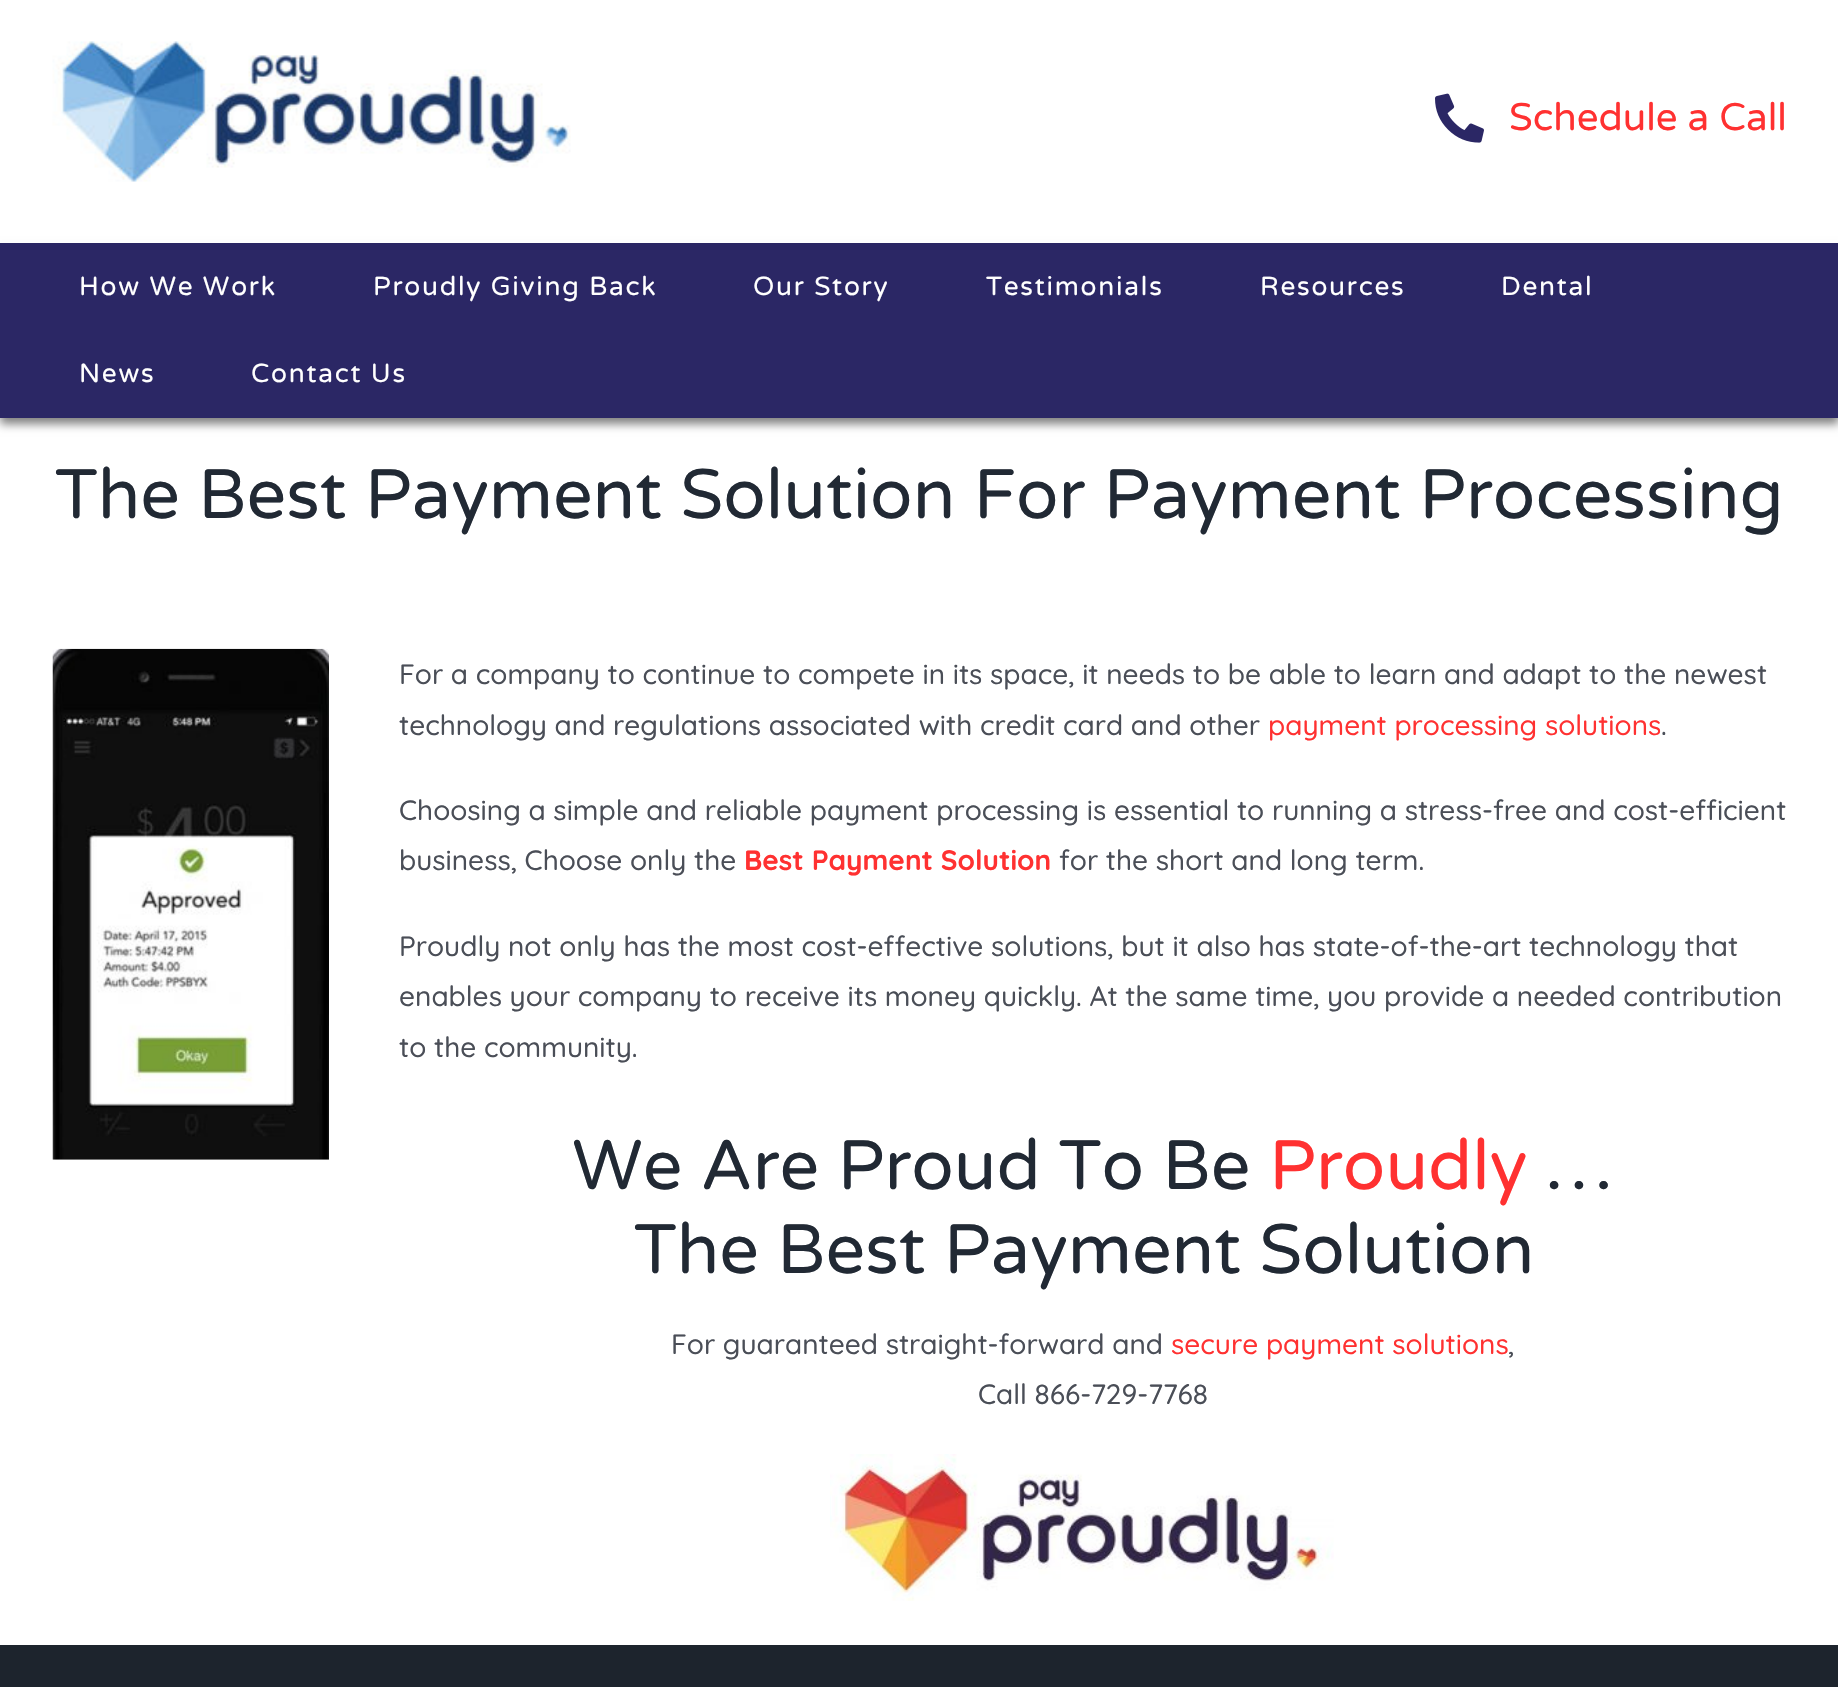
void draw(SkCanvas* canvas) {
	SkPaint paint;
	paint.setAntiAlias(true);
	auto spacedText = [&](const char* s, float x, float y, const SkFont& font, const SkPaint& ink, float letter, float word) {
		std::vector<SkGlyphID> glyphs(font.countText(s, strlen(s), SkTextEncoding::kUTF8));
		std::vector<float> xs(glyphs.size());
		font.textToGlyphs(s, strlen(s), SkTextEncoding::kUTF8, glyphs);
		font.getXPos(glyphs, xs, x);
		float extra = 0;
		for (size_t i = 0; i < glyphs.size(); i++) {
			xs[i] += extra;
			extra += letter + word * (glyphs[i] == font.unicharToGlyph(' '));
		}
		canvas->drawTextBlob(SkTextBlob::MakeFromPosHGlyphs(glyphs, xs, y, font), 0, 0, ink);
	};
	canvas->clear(0xffffffff);
	paint.setColor(0x80000000);
	paint.setMaskFilter(SkMaskFilter::MakeBlur(kNormal_SkBlurStyle, 4.5));
	canvas->drawRect(SkRect::MakeXYWH(0, 249, 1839, 175), paint);
	paint.setMaskFilter(nullptr);
	paint.setColor(0xffffffff);
	canvas->drawRect(SkRect::MakeXYWH(0, 240, 1838, 3), paint);
	canvas->drawImageRect(SkImages::DeferredFromEncodedData(SkData::MakeFromFileName("img1.png")), SkRect::MakeXYWH(52, 41, 519, 141), SkSamplingOptions());
	canvas->drawImageRect(SkImages::DeferredFromEncodedData(SkData::MakeFromFileName("img2.png")), SkRect::MakeXYWH(1435, 93, 49, 50), SkSamplingOptions());
	SkFont f1(fontMgr->matchFamilyStyle("Varela Round", SkFontStyle::Normal()), 38.5);
	f1.setSubpixel(true);
	paint.setColor(0xffff3131);
	canvas->drawString("Schedule a Call", 1509, 130, f1, paint);
	paint.setColor(0xff2b2765);
	canvas->drawRect(SkRect::MakeXYWH(0, 243, 1838, 175), paint);
	SkFont f2(fontMgr->matchFamilyStyle("Varela Round", SkFontStyle::Normal()), 26.25);
	f2.setSubpixel(true);
	paint.setColor(0xffffffff);
	spacedText("How We Work", 79, 295, f2, paint, 1.75, 0);
	spacedText("Proudly Giving Back", 373, 295, f2, paint, 1.75, 0);
	spacedText("Our Story", 753, 295, f2, paint, 1.75, 0);
	spacedText("Testimonials", 986, 295, f2, paint, 1.75, 0);
	spacedText("Resources", 1260, 295, f2, paint, 1.75, 0);
	spacedText("Dental", 1501, 295, f2, paint, 1.75, 0);
	spacedText("News", 79, 382, f2, paint, 1.75, 0);
	spacedText("Contact Us", 251, 382, f2, paint, 1.75, 0);
	SkFont f3(fontMgr->matchFamilyStyle("Varela Round", SkFontStyle::Normal()), 70);
	f3.setSubpixel(true);
	paint.setColor(0xff212934);
	canvas->drawString("The Best Payment Solution For Payment Processing", 55, 518, f3, paint);
	canvas->drawImageRect(SkImages::DeferredFromEncodedData(SkData::MakeFromFileName("img3.png")), SkRect::MakeXYWH(52, 648, 277, 512), SkSamplingOptions());
	SkFont f4(fontMgr->matchFamilyStyle("Quicksand", SkFontStyle(300, SkFontStyle::kNormal_Width, SkFontStyle::kUpright_Slant)), 28);
	f4.setSubpixel(true);
	paint.setColor(0xff4a4e57);
	canvas->drawString("For a company to continue to compete in its space, it needs to be able to learn and adapt to the newest", 399, 684, f4, paint);
	canvas->drawString("technology and regulations associated with credit card and other", 399, 735, f4, paint);
	paint.setColor(0xffff3131);
	canvas->drawString("payment processing solutions", 1268, 735, f4, paint);
	paint.setColor(0xff4a4e57);
	canvas->drawString(".", 1661, 735, f4, paint);
	canvas->drawString("Choosing a simple and reliable payment processing is essential to running a stress-free and cost-efficient", 399, 820, f4, paint);
	canvas->drawString("business, Choose only the", 399, 870, f4, paint);
	SkFont f5(fontMgr->matchFamilyStyle("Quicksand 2", SkFontStyle(300, SkFontStyle::kNormal_Width, SkFontStyle::kUpright_Slant)), 28);
	f5.setSubpixel(true);
	paint.setColor(0xffff3131);
	canvas->drawString("Best Payment Solution", 744, 870, f5, paint);
	paint.setColor(0xff4a4e57);
	canvas->drawString("for the short and long term.", 1059, 870, f4, paint);
	canvas->drawString("Proudly not only has the most cost-effective solutions, but it also has state-of-the-art technology that", 399, 956, f4, paint);
	canvas->drawString("enables your company to receive its money quickly. At the same time, you provide a needed contribution", 399, 1006, f4, paint);
	canvas->drawString("to the community.", 399, 1057, f4, paint);
	paint.setColor(0xff212934);
	canvas->drawString("We Are Proud To Be", 572, 1189, f3, paint);
	paint.setColor(0xffff3131);
	canvas->drawString("Proudly", 1269, 1189, f3, paint);
	paint.setColor(0xff212934);
	canvas->drawString("…", 1545, 1189, f3, paint);
	canvas->drawString("The Best Payment Solution", 634, 1273, f3, paint);
	paint.setColor(0xff4a4e57);
	canvas->drawString("For guaranteed straight-forward and", 671, 1354, f4, paint);
	paint.setColor(0xffff3131);
	canvas->drawString("secure payment solutions", 1171, 1354, f4, paint);
	paint.setColor(0xff4a4e57);
	canvas->drawString(",", 1508, 1354, f4, paint);
	canvas->drawString("Call 866-729-7768", 978, 1404, f4, paint);
	canvas->drawImageRect(SkImages::DeferredFromEncodedData(SkData::MakeFromFileName("img4.png")), SkRect::MakeXYWH(830, 1454, 504, 147), SkSamplingOptions());
	paint.setColor(0xff1d242d);
	canvas->drawRect(SkRect::MakeXYWH(0, 1645, 1838, 42), paint);
}
